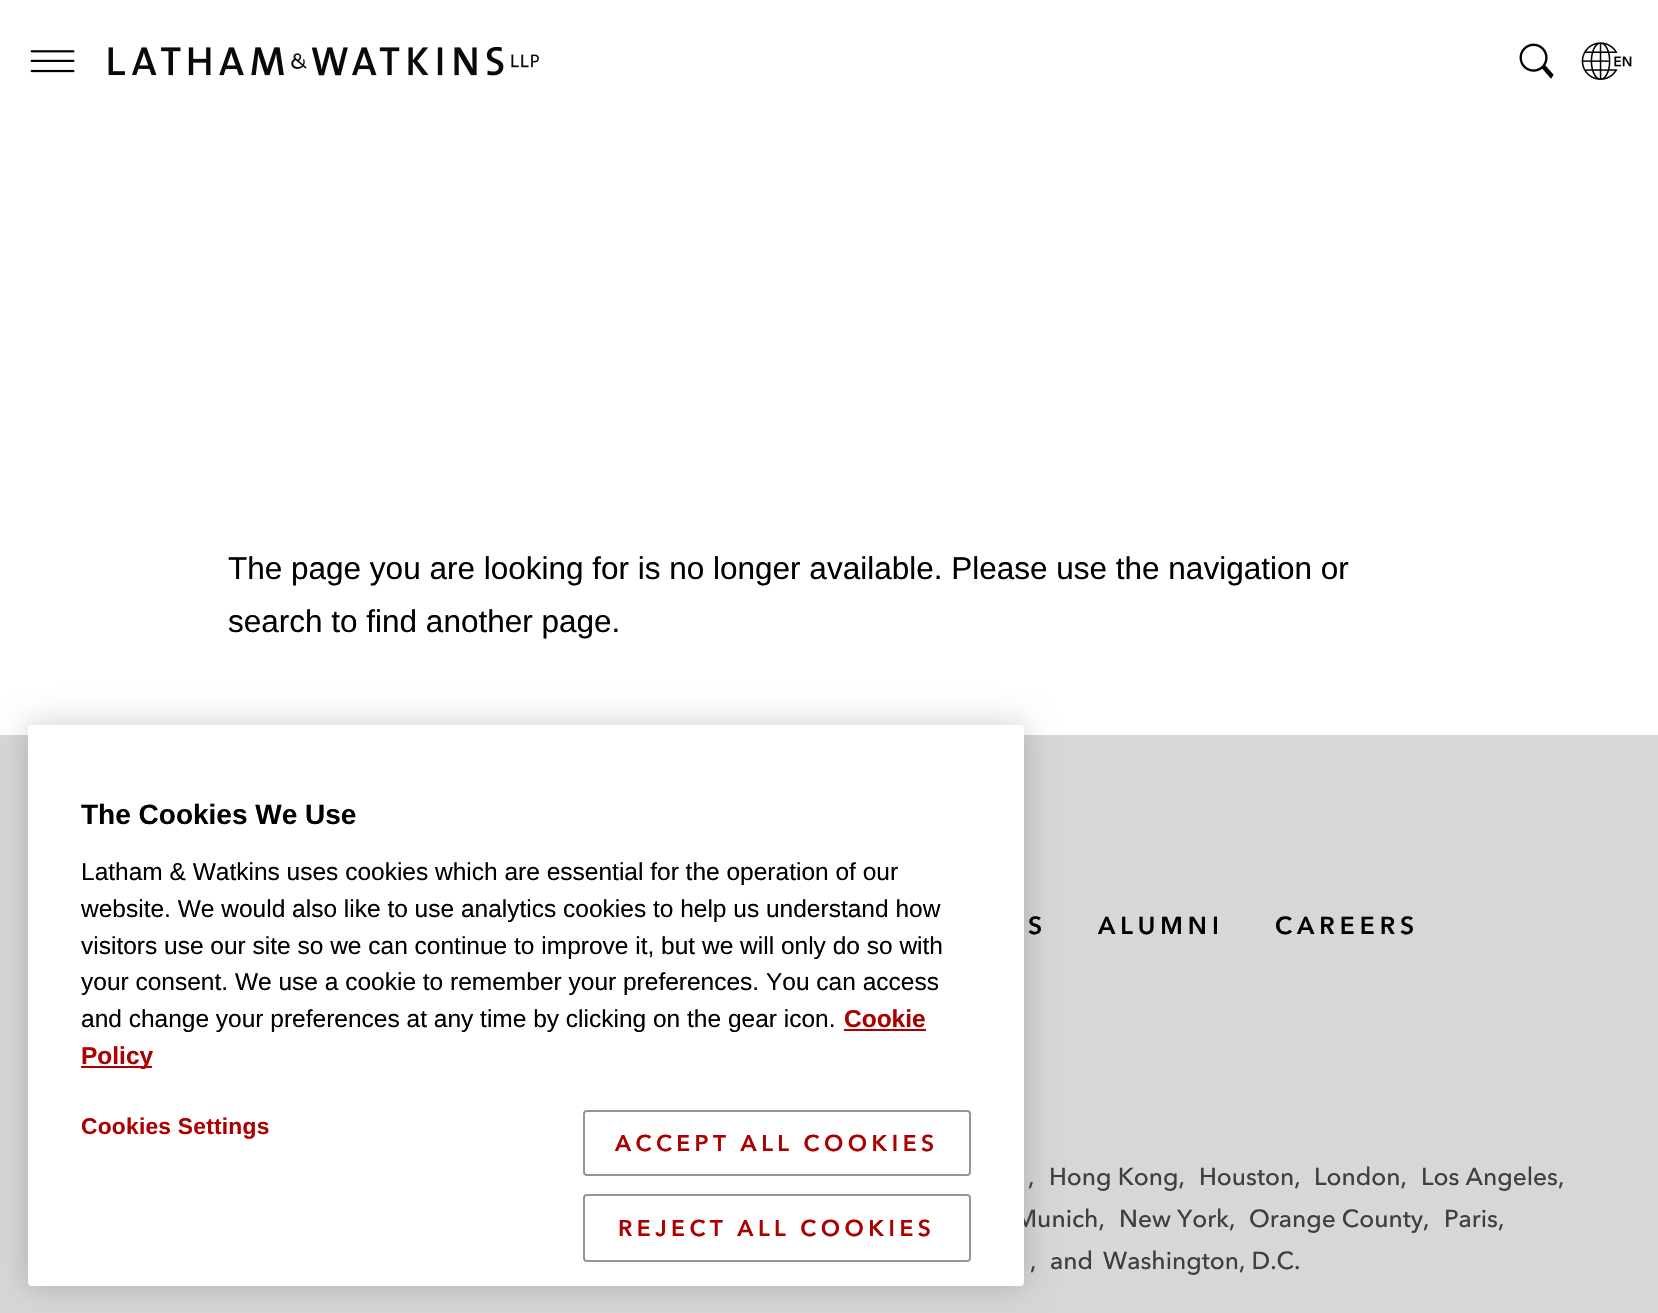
void draw(SkCanvas* canvas) {
	SkPaint paint;
	paint.setAntiAlias(true);
	auto spacedText = [&](const char* s, float x, float y, const SkFont& font, const SkPaint& ink, float letter, float word) {
		std::vector<SkGlyphID> glyphs(font.countText(s, strlen(s), SkTextEncoding::kUTF8));
		std::vector<float> xs(glyphs.size());
		font.textToGlyphs(s, strlen(s), SkTextEncoding::kUTF8, glyphs);
		font.getXPos(glyphs, xs, x);
		float extra = 0;
		for (size_t i = 0; i < glyphs.size(); i++) {
			xs[i] += extra;
			extra += letter + word * (glyphs[i] == font.unicharToGlyph(' '));
		}
		canvas->drawTextBlob(SkTextBlob::MakeFromPosHGlyphs(glyphs, xs, y, font), 0, 0, ink);
	};
	canvas->clear(0xffffffff);
	canvas->drawImageRect(SkImages::DeferredFromEncodedData(SkData::MakeFromFileName("img1.png")), SkRect::MakeXYWH(30, 50, 45, 23), SkSamplingOptions());
	canvas->drawImageRect(SkImages::DeferredFromEncodedData(SkData::MakeFromFileName("img2.png")), SkRect::MakeXYWH(108, 46, 431, 30), SkSamplingOptions());
	canvas->drawImageRect(SkImages::DeferredFromEncodedData(SkData::MakeFromFileName("img3.png")), SkRect::MakeXYWH(1519, 43, 35, 36), SkSamplingOptions());
	canvas->drawImageRect(SkImages::DeferredFromEncodedData(SkData::MakeFromFileName("img4.png")), SkRect::MakeXYWH(1581, 42, 51, 38), SkSamplingOptions());
	SkFont f1(fontMgr->matchFamilyStyle("Liberation Sans", SkFontStyle::Normal()), 31.5);
	f1.setSubpixel(true);
	paint.setColor(0xff000000);
	canvas->drawString("The page you are looking for is no longer available. Please use the navigation or", 228, 579, f1, paint);
	canvas->drawString("search to find another page.", 228, 632, f1, paint);
	paint.setColor(0xffd7d7d7);
	canvas->drawRect(SkRect::MakeXYWH(0, 735, 1658, 578), paint);
	paint.setColor(0x33000000);
	paint.setMaskFilter(SkMaskFilter::MakeBlur(kNormal_SkBlurStyle, 16));
	canvas->drawRoundRect(SkRect::MakeXYWH(28, 725, 996, 561), 4, 4, paint);
	paint.setMaskFilter(nullptr);
	SkFont f2(fontMgr->matchFamilyStyle("Avenir Next", SkFontStyle(500, SkFontStyle::kNormal_Width, SkFontStyle::kUpright_Slant)), 24.5);
	f2.setSubpixel(true);
	paint.setColor(0xff3f3f3f);
	canvas->drawString("Munich,", 1015, 1227, f2, paint);
	paint.setColor(0xffffffff);
	canvas->drawRoundRect(SkRect::MakeXYWH(28, 725, 996, 561), 4, 4, paint);
	SkFont f3(fontMgr->matchFamilyStyle("Liberation Sans", SkFontStyle::Bold()), 28);
	f3.setSubpixel(true);
	paint.setColor(0xff000000);
	canvas->drawString("The Cookies We Use", 81, 824, f3, paint);
	SkFont f4(fontMgr->matchFamilyStyle("Liberation Sans", SkFontStyle::Normal()), 24.5);
	f4.setSubpixel(true);
	canvas->drawString("Latham & Watkins uses cookies which are essential for the operation of our", 81, 880, f4, paint);
	canvas->drawString("website. We would also like to use analytics cookies to help us understand how", 81, 917, f4, paint);
	canvas->drawString("visitors use our site so we can continue to improve it, but we will only do so with", 81, 954, f4, paint);
	canvas->drawString("your consent. We use a cookie to remember your preferences. You can access", 81, 990, f4, paint);
	canvas->drawString("and change your preferences at any time by clicking on the gear icon.", 81, 1027, f4, paint);
	SkFont f5(fontMgr->matchFamilyStyle("Liberation Sans", SkFontStyle::Bold()), 24.5);
	f5.setSubpixel(true);
	paint.setColor(0xffac0000);
	canvas->drawString("Cookie", 844, 1027, f5, paint);
	canvas->drawRect(SkRect::MakeXYWH(844, 1029, 82, 2), paint);
	canvas->drawRect(SkRect::MakeXYWH(81, 1066, 71, 2), paint);
	canvas->drawString("Policy", 81, 1064, f5, paint);
	SkFont f6(fontMgr->matchFamilyStyle("Liberation Sans", SkFontStyle::Bold()), 22.75);
	f6.setSubpixel(true);
	spacedText("Cookies Settings", 81, 1134, f6, paint, 0.25, 0);
	paint.setStroke(true);
	paint.setStrokeWidth(2);
	paint.setColor(0xff959595);
	canvas->drawRoundRect(SkRect::MakeXYWH(584, 1111, 386, 64), 3, 3, paint);
	SkFont f7(fontMgr->matchFamilyStyle("Avenir Next", SkFontStyle::Bold()), 22.75);
	f7.setSubpixel(true);
	paint.setStroke(false);
	paint.setColor(0xffac0000);
	spacedText("ACCEPT ALL COOKIES", 615, 1151, f7, paint, 4.5, 0);
	paint.setStroke(true);
	paint.setColor(0xff959595);
	canvas->drawRoundRect(SkRect::MakeXYWH(584, 1195, 386, 66), 3, 3, paint);
	paint.setStroke(false);
	paint.setColor(0xffac0000);
	spacedText("REJECT ALL COOKIES", 618, 1236, f7, paint, 4.5, 0);
	SkFont f8(fontMgr->matchFamilyStyle("Avenir Next", SkFontStyle::Bold()), 24.5);
	f8.setSubpixel(true);
	paint.setColor(0xff000000);
	spacedText("S", 1028, 934, f8, paint, 5, 0);
	spacedText("ALUMNI", 1098, 934, f8, paint, 5, 0);
	spacedText("CAREERS", 1275, 934, f8, paint, 5, 0);
	paint.setColor(0xff3f3f3f);
	canvas->drawString(",", 1028, 1185, f2, paint);
	canvas->drawString("Hong Kong,", 1049, 1185, f2, paint);
	canvas->drawString("Houston,", 1199, 1185, f2, paint);
	canvas->drawString("London,", 1314, 1185, f2, paint);
	canvas->drawString("Los Angeles,", 1421, 1185, f2, paint);
	canvas->drawString("New York,", 1119, 1227, f2, paint);
	canvas->drawString("Orange County,", 1249, 1227, f2, paint);
	canvas->drawString("Paris,", 1444, 1227, f2, paint);
	canvas->drawString(",", 1030, 1269, f2, paint);
	canvas->drawString("and", 1050, 1269, f2, paint);
	canvas->drawString("Washington, D.C.", 1103, 1269, f2, paint);
}
